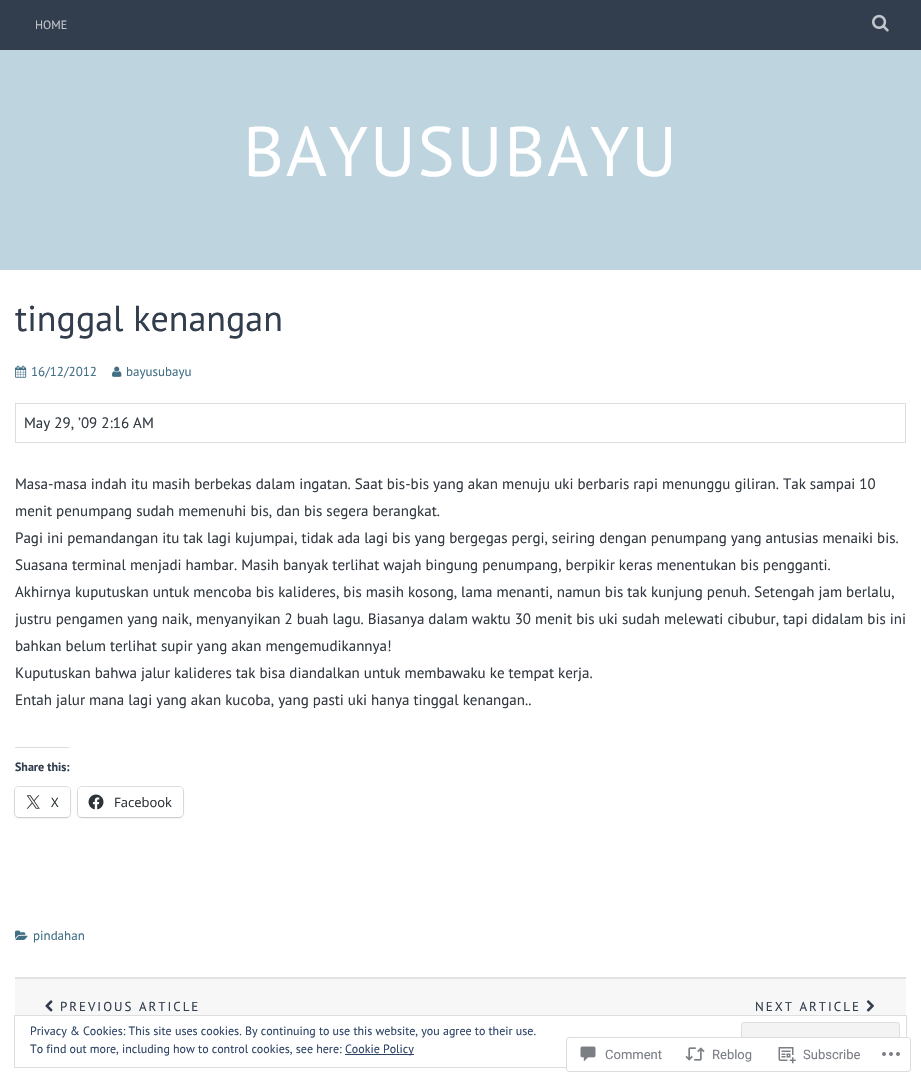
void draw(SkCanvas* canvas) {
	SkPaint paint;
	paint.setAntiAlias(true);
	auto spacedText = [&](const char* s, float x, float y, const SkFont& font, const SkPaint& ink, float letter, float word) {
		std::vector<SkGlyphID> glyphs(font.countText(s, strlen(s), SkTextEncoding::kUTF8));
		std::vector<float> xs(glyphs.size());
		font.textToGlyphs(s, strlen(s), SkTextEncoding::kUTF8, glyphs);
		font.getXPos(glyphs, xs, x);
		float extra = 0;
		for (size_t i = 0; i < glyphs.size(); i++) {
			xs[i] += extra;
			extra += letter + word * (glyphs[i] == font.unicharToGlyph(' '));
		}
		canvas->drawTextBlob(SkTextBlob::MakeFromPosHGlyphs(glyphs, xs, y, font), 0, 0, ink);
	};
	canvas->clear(0xffffffff);
	paint.setColor(0xff323e4e);
	canvas->drawRect(SkRect::MakeXYWH(0, 0, 921, 50), paint);
	SkFont f1(fontMgr->matchFamilyStyle("PT Sans", SkFontStyle::Normal()), 12);
	f1.setSubpixel(true);
	paint.setColor(0xffc2c5ca);
	canvas->drawString("HOME", 35, 29, f1, paint);
	canvas->drawImageRect(SkImages::DeferredFromEncodedData(SkData::MakeFromFileName("img1.png")), SkRect::MakeXYWH(872, 14, 17, 18), SkSamplingOptions());
	paint.setColor(0xffbed4df);
	canvas->drawRect(SkRect::MakeXYWH(0, 50, 921, 220), paint);
	SkFont f2(fontMgr->matchFamilyStyle("PT Sans", SkFontStyle::Normal()), 70);
	f2.setSubpixel(true);
	paint.setColor(0xffffffff);
	spacedText("BAYUSUBAYU", 243, 176, f2, paint, 2, 0);
	paint.setColor(0xffe2e2e2);
	canvas->drawRect(SkRect::MakeXYWH(15, 977, 891, 2), paint);
	SkFont f3(fontMgr->matchFamilyStyle("PT Sans", SkFontStyle::Normal()), 36);
	f3.setSubpixel(true);
	paint.setColor(0xff323e4e);
	canvas->drawString("tinggal kenangan", 15, 331, f3, paint);
	canvas->drawImageRect(SkImages::DeferredFromEncodedData(SkData::MakeFromFileName("img2.png")), SkRect::MakeXYWH(15, 365, 12, 13), SkSamplingOptions());
	SkFont f4(fontMgr->matchFamilyStyle("PT Sans", SkFontStyle::Normal()), 13);
	f4.setSubpixel(true);
	paint.setColor(0xff426f86);
	canvas->drawString("16/12/2012", 31, 376, f4, paint);
	canvas->drawImageRect(SkImages::DeferredFromEncodedData(SkData::MakeFromFileName("img3.png")), SkRect::MakeXYWH(112, 366, 10, 11), SkSamplingOptions());
	canvas->drawString("bayusubayu", 126, 376, f4, paint);
	paint.setColor(0xffdddddd);
	canvas->drawRect(SkRect::MakeXYWH(15, 403, 891, 1), paint);
	canvas->drawRect(SkRect::MakeXYWH(905, 403, 1, 40), paint);
	canvas->drawRect(SkRect::MakeXYWH(15, 442, 891, 1), paint);
	canvas->drawRect(SkRect::MakeXYWH(15, 403, 1, 40), paint);
	SkFont f5(fontMgr->matchFamilyStyle("PT Sans", SkFontStyle::Normal()), 15);
	f5.setSubpixel(true);
	paint.setColor(0xff333a42);
	canvas->drawString("May 29, ’09 2:16 AM", 24, 428, f5, paint);
	canvas->drawString("Masa-masa indah itu masih berbekas dalam ingatan. Saat bis-bis yang akan menuju uki berbaris rapi menunggu giliran. Tak sampai 10", 15, 489, f5, paint);
	canvas->drawString("menit penumpang sudah memenuhi bis, dan bis segera berangkat.", 15, 516, f5, paint);
	canvas->drawString("Pagi ini pemandangan itu tak lagi kujumpai, tidak ada lagi bis yang bergegas pergi, seiring dengan penumpang yang antusias menaiki bis.", 15, 543, f5, paint);
	canvas->drawString("Suasana terminal menjadi hambar. Masih banyak terlihat wajah bingung penumpang, berpikir keras menentukan bis pengganti.", 15, 570, f5, paint);
	canvas->drawString("Akhirnya kuputuskan untuk mencoba bis kalideres, bis masih kosong, lama menanti, namun bis tak kunjung penuh. Setengah jam berlalu,", 15, 597, f5, paint);
	canvas->drawString("justru pengamen yang naik, menyanyikan 2 buah lagu. Biasanya dalam waktu 30 menit bis uki sudah melewati cibubur, tapi didalam bis ini", 15, 624, f5, paint);
	canvas->drawString("bahkan belum terlihat supir yang akan mengemudikannya!", 15, 651, f5, paint);
	canvas->drawString("Kuputuskan bahwa jalur kalideres tak bisa diandalkan untuk membawaku ke tempat kerja.", 15, 678, f5, paint);
	canvas->drawString("Entah jalur mana lagi yang akan kucoba, yang pasti uki hanya tinggal kenangan..", 15, 705, f5, paint);
	paint.setColor(0xffdcdcde);
	canvas->drawRect(SkRect::MakeXYWH(15, 747, 54, 1), paint);
	SkFont f6(fontMgr->matchFamilyStyle("PT Sans", SkFontStyle::Bold()), 12);
	f6.setSubpixel(true);
	paint.setColor(0xff323e4e);
	canvas->drawString("Share this:", 15, 771, f6, paint);
	paint.setStroke(true);
	paint.setStrokeWidth(1);
	paint.setColor(0xffe0e0e0);
	canvas->drawRoundRect(SkRect::MakeXYWH(14.5, 786.5, 56, 31), 4.5, 4.5, paint);
	paint.setStroke(false);
	paint.setColor(0x1f000000);
	paint.setMaskFilter(SkMaskFilter::MakeBlur(kNormal_SkBlurStyle, 1));
	canvas->drawRoundRect(SkRect::MakeXYWH(15, 788, 55, 30), 4, 4, paint);
	paint.setMaskFilter(nullptr);
	paint.setColor(0xffffffff);
	canvas->drawRoundRect(SkRect::MakeXYWH(15, 787, 55, 30), 4, 4, paint);
	canvas->drawImageRect(SkImages::DeferredFromEncodedData(SkData::MakeFromFileName("img4.png")), SkRect::MakeXYWH(26, 795, 14, 14), SkSamplingOptions());
	SkFont f7(fontMgr->matchFamilyStyle("Open Sans", SkFontStyle::Normal()), 13);
	f7.setSubpixel(true);
	paint.setColor(0xff2c3338);
	canvas->drawString("X", 51, 807, f7, paint);
	paint.setStroke(true);
	paint.setColor(0xffe0e0e0);
	canvas->drawRoundRect(SkRect::MakeXYWH(77.5, 786.5, 106, 31), 4.5, 4.5, paint);
	paint.setStroke(false);
	paint.setColor(0x1f000000);
	paint.setMaskFilter(SkMaskFilter::MakeBlur(kNormal_SkBlurStyle, 1));
	canvas->drawRoundRect(SkRect::MakeXYWH(78, 788, 105, 30), 4, 4, paint);
	paint.setMaskFilter(nullptr);
	paint.setColor(0xffffffff);
	canvas->drawRoundRect(SkRect::MakeXYWH(78, 787, 105, 30), 4, 4, paint);
	canvas->drawImageRect(SkImages::DeferredFromEncodedData(SkData::MakeFromFileName("img5.png")), SkRect::MakeXYWH(88, 794, 16, 16), SkSamplingOptions());
	paint.setColor(0xff2c3338);
	canvas->drawString("Facebook", 114, 807, f7, paint);
	canvas->drawImageRect(SkImages::DeferredFromEncodedData(SkData::MakeFromFileName("img6.png")), SkRect::MakeXYWH(15, 930, 13, 10), SkSamplingOptions());
	paint.setColor(0xff426f86);
	canvas->drawString("pindahan", 33, 940, f4, paint);
	paint.setColor(0xfff7f7f7);
	canvas->drawRect(SkRect::MakeXYWH(15, 979, 891, 36), paint);
	canvas->drawImageRect(SkImages::DeferredFromEncodedData(SkData::MakeFromFileName("img7.png")), SkRect::MakeXYWH(45, 1000, 8, 12), SkSamplingOptions());
	paint.setColor(0xff323e4e);
	spacedText("PREVIOUS ARTICLE", 60, 1011, f4, paint, 2, 0);
	spacedText("NEXT ARTICLE", 755, 1011, f4, paint, 2, 0);
	canvas->drawImageRect(SkImages::DeferredFromEncodedData(SkData::MakeFromFileName("img8.png")), SkRect::MakeXYWH(866, 1000, 8, 12), SkSamplingOptions());
	paint.setStroke(true);
	paint.setColor(0xffdedede);
	canvas->drawRect(SkRect::MakeXYWH(14.5, 1015.5, 892, 52), paint);
	paint.setStroke(false);
	paint.setColor(0xff2e4467);
	canvas->drawString("Privacy & Cookies: This site uses cookies. By continuing to use this website, you agree to their use.", 30, 1035, f1, paint);
	paint.setColor(0xfff3f3f3);
	canvas->drawRoundRect(SkRect::MakeXYWH(741.5, 1022.5, 158, 38), 2.5, 2.5, paint);
	paint.setStroke(true);
	paint.setColor(0xffdedede);
	canvas->drawRoundRect(SkRect::MakeXYWH(741.5, 1022.5, 158, 38), 2.5, 2.5, paint);
	paint.setStroke(false);
	paint.setColor(0xff2e4467);
	canvas->drawString("To find out more, including how to control cookies, see here:", 30, 1053, f1, paint);
	canvas->drawRect(SkRect::MakeXYWH(345, 1054, 69, 1), paint);
	canvas->drawString("Cookie Policy", 345, 1053, f1, paint);
	paint.setColor(0xfaffffff);
	canvas->drawRoundRect(SkRect::MakeXYWH(566, 1037, 345, 35), 3, 3, paint);
	paint.setStroke(true);
	paint.setColor(0xfadcdcde);
	canvas->drawRoundRect(SkRect::MakeXYWH(566.5, 1037.5, 344, 34), 2.5, 2.5, paint);
	canvas->drawImageRect(SkImages::DeferredFromEncodedData(SkData::MakeFromFileName("img9.png")), SkRect::MakeXYWH(580, 1046, 16, 16), SkSamplingOptions());
	SkFont f8(fontMgr->matchFamilyStyle("Roboto", SkFontStyle::Normal()), 13);
	f8.setSubpixel(true);
	paint.setStroke(false);
	paint.setColor(0xff7b7f85);
	canvas->drawString("Comment", 605, 1059, f8, paint);
	canvas->drawImageRect(SkImages::DeferredFromEncodedData(SkData::MakeFromFileName("img10.png")), SkRect::MakeXYWH(685, 1047, 20, 14), SkSamplingOptions());
	canvas->drawString("Reblog", 712, 1059, f8, paint);
	canvas->drawImageRect(SkImages::DeferredFromEncodedData(SkData::MakeFromFileName("img11.png")), SkRect::MakeXYWH(778, 1047, 18, 17), SkSamplingOptions());
	canvas->drawString("Subscribe", 803, 1059, f8, paint);
	canvas->drawImageRect(SkImages::DeferredFromEncodedData(SkData::MakeFromFileName("img12.png")), SkRect::MakeXYWH(882, 1052, 18, 4), SkSamplingOptions());
}
